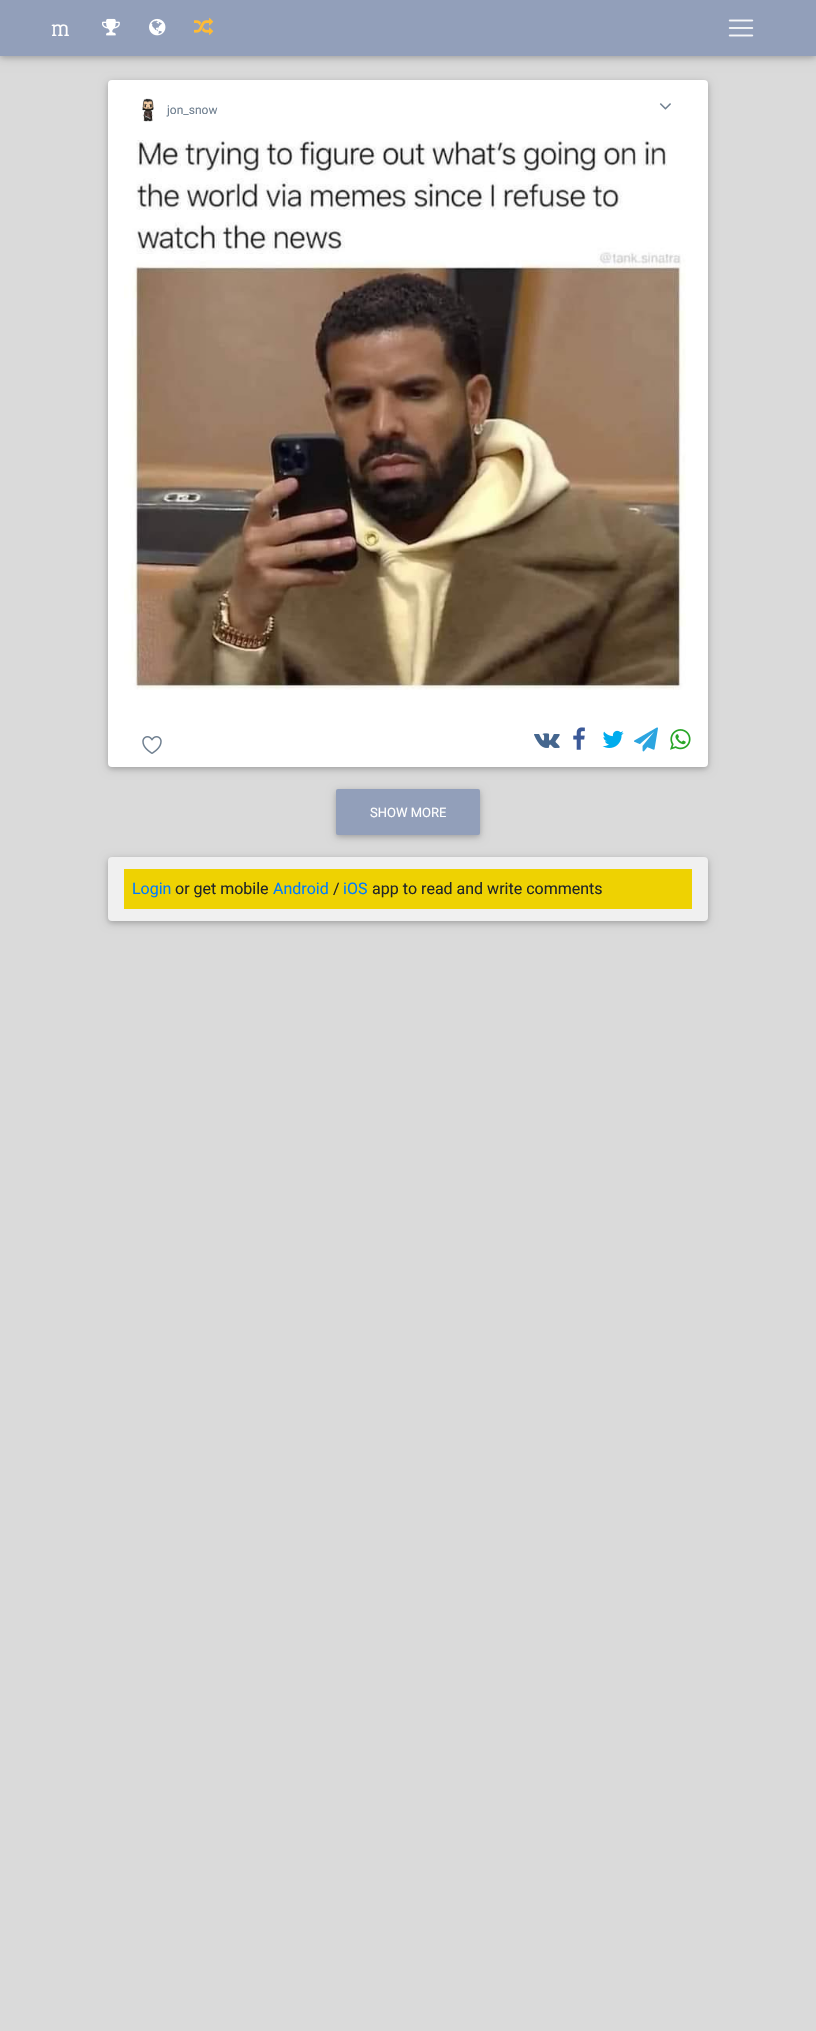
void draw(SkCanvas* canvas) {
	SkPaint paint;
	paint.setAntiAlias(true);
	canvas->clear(0xffdadada);
	paint.setColor(0x1f000000);
	paint.setMaskFilter(SkMaskFilter::MakeBlur(kNormal_SkBlurStyle, 5));
	canvas->drawRect(SkRect::MakeXYWH(0, 2, 816, 56), paint);
	paint.setMaskFilter(nullptr);
	paint.setColor(0x29000000);
	paint.setMaskFilter(SkMaskFilter::MakeBlur(kNormal_SkBlurStyle, 2.5));
	canvas->drawRect(SkRect::MakeXYWH(0, 2, 816, 56), paint);
	paint.setMaskFilter(nullptr);
	paint.setColor(0xff929fba);
	canvas->drawRect(SkRect::MakeXYWH(0, 0, 816, 56), paint);
	SkFont f1(fontMgr->matchFamilyStyle("Kreon", SkFontStyle(300, SkFontStyle::kNormal_Width, SkFontStyle::kUpright_Slant)), 24);
	f1.setSubpixel(true);
	paint.setColor(0xffffffff);
	canvas->drawString("m", 51, 36, f1, paint);
	canvas->drawImageRect(SkImages::DeferredFromEncodedData(SkData::MakeFromFileName("img1.png")), SkRect::MakeXYWH(102, 18, 18, 18), SkSamplingOptions());
	canvas->drawImageRect(SkImages::DeferredFromEncodedData(SkData::MakeFromFileName("img2.png")), SkRect::MakeXYWH(149, 18, 17, 18), SkSamplingOptions());
	canvas->drawImageRect(SkImages::DeferredFromEncodedData(SkData::MakeFromFileName("img3.png")), SkRect::MakeXYWH(194, 17, 20, 18), SkSamplingOptions());
	canvas->drawImageRect(SkImages::DeferredFromEncodedData(SkData::MakeFromFileName("img4.png")), SkRect::MakeXYWH(728, 19, 26, 18), SkSamplingOptions());
	paint.setColor(0x1f000000);
	paint.setMaskFilter(SkMaskFilter::MakeBlur(kNormal_SkBlurStyle, 5));
	canvas->drawRoundRect(SkRect::MakeXYWH(108, 82, 600, 687), 4, 4, paint);
	paint.setMaskFilter(nullptr);
	paint.setColor(0x29000000);
	paint.setMaskFilter(SkMaskFilter::MakeBlur(kNormal_SkBlurStyle, 2.5));
	canvas->drawRoundRect(SkRect::MakeXYWH(108, 82, 600, 687), 4, 4, paint);
	paint.setMaskFilter(nullptr);
	paint.setColor(0xffffffff);
	canvas->drawRoundRect(SkRect::MakeXYWH(108, 80, 600, 687), 4, 4, paint);
	canvas->drawImageRect(SkImages::DeferredFromEncodedData(SkData::MakeFromFileName("img5.png")), SkRect::MakeXYWH(142, 98, 12, 24), SkSamplingOptions());
	SkFont f2(fontMgr->matchFamilyStyle("Roboto", SkFontStyle::Normal()), 12);
	f2.setSubpixel(true);
	paint.setColor(0xff708090);
	canvas->drawString("jon_snow", 167, 114, f2, paint);
	canvas->drawImageRect(SkImages::DeferredFromEncodedData(SkData::MakeFromFileName("img6.png")), SkRect::MakeXYWH(659, 103, 12, 7), SkSamplingOptions());
	canvas->drawImageRect(SkImages::DeferredFromEncodedData(SkData::MakeFromFileName("img7.png")), SkRect::MakeXYWH(124, 140, 562, 550), SkSamplingOptions());
	canvas->drawImageRect(SkImages::DeferredFromEncodedData(SkData::MakeFromFileName("img8.png")), SkRect::MakeXYWH(142, 736, 20, 18), SkSamplingOptions());
	canvas->drawImageRect(SkImages::DeferredFromEncodedData(SkData::MakeFromFileName("img9.png")), SkRect::MakeXYWH(534, 733, 26, 15), SkSamplingOptions());
	canvas->drawImageRect(SkImages::DeferredFromEncodedData(SkData::MakeFromFileName("img10.png")), SkRect::MakeXYWH(573, 727, 12, 23), SkSamplingOptions());
	canvas->drawImageRect(SkImages::DeferredFromEncodedData(SkData::MakeFromFileName("img11.png")), SkRect::MakeXYWH(602, 730, 22, 18), SkSamplingOptions());
	canvas->drawImageRect(SkImages::DeferredFromEncodedData(SkData::MakeFromFileName("img12.png")), SkRect::MakeXYWH(634, 727, 24, 25), SkSamplingOptions());
	canvas->drawImageRect(SkImages::DeferredFromEncodedData(SkData::MakeFromFileName("img13.png")), SkRect::MakeXYWH(670, 729, 21, 21), SkSamplingOptions());
	paint.setColor(0x1f000000);
	paint.setMaskFilter(SkMaskFilter::MakeBlur(kNormal_SkBlurStyle, 5));
	canvas->drawRoundRect(SkRect::MakeXYWH(336, 791, 144, 46), 2, 2, paint);
	paint.setMaskFilter(nullptr);
	paint.setColor(0x29000000);
	paint.setMaskFilter(SkMaskFilter::MakeBlur(kNormal_SkBlurStyle, 2.5));
	canvas->drawRoundRect(SkRect::MakeXYWH(336, 791, 144, 46), 2, 2, paint);
	paint.setMaskFilter(nullptr);
	paint.setColor(0xff929fba);
	canvas->drawRoundRect(SkRect::MakeXYWH(336, 789, 144, 46), 2, 2, paint);
	SkFont f3(fontMgr->matchFamilyStyle("Roboto", SkFontStyle::Normal()), 13);
	f3.setSubpixel(true);
	paint.setColor(0xffffffff);
	canvas->drawString("SHOW MORE", 370, 817, f3, paint);
	paint.setColor(0x1f000000);
	paint.setMaskFilter(SkMaskFilter::MakeBlur(kNormal_SkBlurStyle, 5));
	canvas->drawRoundRect(SkRect::MakeXYWH(108, 859, 600, 64), 4, 4, paint);
	paint.setMaskFilter(nullptr);
	paint.setColor(0x29000000);
	paint.setMaskFilter(SkMaskFilter::MakeBlur(kNormal_SkBlurStyle, 2.5));
	canvas->drawRoundRect(SkRect::MakeXYWH(108, 859, 600, 64), 4, 4, paint);
	paint.setMaskFilter(nullptr);
	paint.setColor(0xfff0f0f0);
	canvas->drawRoundRect(SkRect::MakeXYWH(108, 857, 600, 64), 4, 4, paint);
	paint.setColor(0xffeed202);
	canvas->drawRect(SkRect::MakeXYWH(124, 869, 568, 40), paint);
	SkFont f4(fontMgr->matchFamilyStyle("Roboto", SkFontStyle::Normal()), 16);
	f4.setSubpixel(true);
	paint.setColor(0xff007bff);
	canvas->drawString("Login", 132, 894, f4, paint);
	paint.setColor(0xff212529);
	canvas->drawString("or get mobile", 175, 894, f4, paint);
	paint.setColor(0xff007bff);
	canvas->drawString("Android", 273, 894, f4, paint);
	paint.setColor(0xff212529);
	canvas->drawString("/", 333, 894, f4, paint);
	paint.setColor(0xff007bff);
	canvas->drawString("iOS", 343, 894, f4, paint);
	paint.setColor(0xff212529);
	canvas->drawString("app to read and write comments", 372, 894, f4, paint);
}
